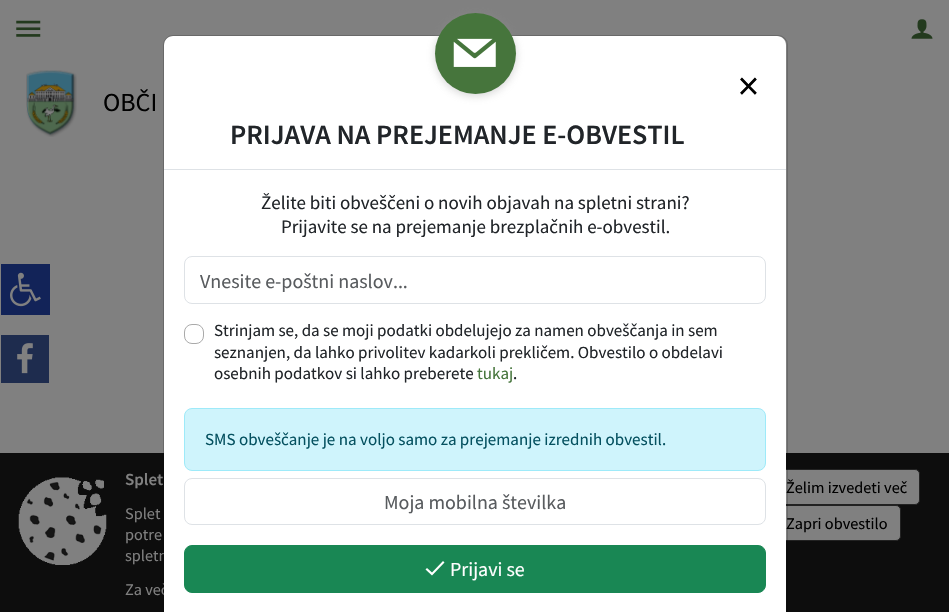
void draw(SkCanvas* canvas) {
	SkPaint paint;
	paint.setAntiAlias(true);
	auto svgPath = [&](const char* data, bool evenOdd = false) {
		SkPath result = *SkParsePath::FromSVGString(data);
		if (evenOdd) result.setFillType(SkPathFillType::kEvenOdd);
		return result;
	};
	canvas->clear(0xff808080);
	paint.setColor(0xe6000000);
	canvas->drawRect(SkRect::MakeXYWH(0, 453, 949, 159), paint);
	SkFont f1(fontMgr->matchFamilyStyle("Source Sans Pro", SkFontStyle::Normal()), 16.25);
	f1.setSubpixel(true);
	paint.setColor(0xff808080);
	canvas->drawString("spletn", 125, 561, f1, paint);
	canvas->drawString("Za več", 125, 595, f1, paint);
	canvas->drawRoundRect(SkRect::MakeXYWH(773.5, 469.5, 146, 35), 4.5, 4.5, paint);
	paint.setStroke(true);
	paint.setStrokeWidth(1);
	paint.setColor(0xff222222);
	canvas->drawRoundRect(SkRect::MakeXYWH(773.5, 469.5, 146, 35), 4.5, 4.5, paint);
	paint.setStroke(false);
	paint.setColor(0xff808080);
	canvas->drawRoundRect(SkRect::MakeXYWH(773.5, 505.5, 127, 35), 4.5, 4.5, paint);
	paint.setStroke(true);
	paint.setColor(0xff222222);
	canvas->drawRoundRect(SkRect::MakeXYWH(773.5, 505.5, 127, 35), 4.5, 4.5, paint);
	paint.setStroke(false);
	paint.setColor(0xffffffff);
	canvas->drawPath(svgPath("M173 36H777C782 36 786 40 786 45V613H164V45C164 40 168 36 173 36Z"), paint);
	paint.setColor(0xff000000);
	canvas->drawString("Želim izvedeti več", 786, 493, f1, paint);
	canvas->drawString("Zapri obvestilo", 786, 529, f1, paint);
	paint.setStroke(true);
	paint.setColor(0x2e000000);
	canvas->drawRoundRect(SkRect::MakeXYWH(163.5, 35.5, 624, 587), 9.5, 9.5, paint);
	paint.setStroke(false);
	paint.setColor(0xffdee2e6);
	canvas->drawRect(SkRect::MakeXYWH(164, 169, 622, 1), paint);
	paint.setColor(0x66969696);
	paint.setMaskFilter(SkMaskFilter::MakeBlur(kNormal_SkBlurStyle, 4));
	canvas->drawRoundRect(SkRect::MakeXYWH(435, 15, 81, 81), 40.5, 40.5, paint);
	paint.setMaskFilter(nullptr);
	paint.setColor(0xff46753c);
	canvas->drawCircle(475.5, 53.5, 40.5, paint);
	canvas->drawImageRect(SkImages::DeferredFromEncodedData(SkData::MakeFromFileName("img1.png")), SkRect::MakeXYWH(453, 38, 43, 29), SkSamplingOptions());
	SkFont f2(fontMgr->matchFamilyStyle("Source Sans Pro", SkFontStyle::Normal()), 42);
	f2.setSubpixel(true);
	paint.setColor(0xff000000);
	canvas->drawString("×", 738, 100, f2, paint);
	SkFont f3(fontMgr->matchFamilyStyle("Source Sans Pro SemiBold", SkFontStyle(600, SkFontStyle::kNormal_Width, SkFontStyle::kUpright_Slant)), 28);
	f3.setSubpixel(true);
	paint.setColor(0xff212529);
	canvas->drawString("PRIJAVA NA PREJEMANJE E-OBVESTIL", 230, 144, f3, paint);
	SkFont f4(fontMgr->matchFamilyStyle("Source Sans Pro", SkFontStyle::Normal()), 19);
	f4.setSubpixel(true);
	canvas->drawString("Želite biti obveščeni o novih objavah na spletni strani?", 261, 209, f4, paint);
	canvas->drawString("Prijavite se na prejemanje brezplačnih e-obvestil.", 281, 233, f4, paint);
	paint.setStroke(true);
	paint.setColor(0xffdee2e6);
	canvas->drawRoundRect(SkRect::MakeXYWH(184.5, 256.5, 581, 47), 7.5, 7.5, paint);
	SkFont f5(fontMgr->matchFamilyStyle("Source Sans Pro", SkFontStyle::Normal()), 20);
	f5.setSubpixel(true);
	paint.setStroke(false);
	paint.setColor(0xff595c5f);
	canvas->drawString("Vnesite e-poštni naslov...", 200, 288, f5, paint);
	paint.setStroke(true);
	paint.setColor(0xffaaaaaa);
	canvas->drawRoundRect(SkRect::MakeXYWH(184.5, 324.5, 19, 19), 7.5, 7.5, paint);
	SkFont f6(fontMgr->matchFamilyStyle("Source Sans Pro", SkFontStyle::Normal()), 17);
	f6.setSubpixel(true);
	paint.setStroke(false);
	paint.setColor(0xff212529);
	canvas->drawString("Strinjam se, da se moji podatki obdelujejo za namen obveščanja in sem", 214, 336, f6, paint);
	canvas->drawString("seznanjen, da lahko privolitev kadarkoli prekličem. Obvestilo o obdelavi", 214, 358, f6, paint);
	canvas->drawString("osebnih podatkov si lahko preberete", 214, 379, f6, paint);
	paint.setColor(0xff46753c);
	canvas->drawString("tukaj", 477, 379, f6, paint);
	paint.setColor(0xff212529);
	canvas->drawString(".", 513, 379, f6, paint);
	paint.setColor(0xffcff4fc);
	canvas->drawRoundRect(SkRect::MakeXYWH(184.5, 408.5, 581, 62), 7.5, 7.5, paint);
	paint.setStroke(true);
	paint.setColor(0xff9eeaf9);
	canvas->drawRoundRect(SkRect::MakeXYWH(184.5, 408.5, 581, 62), 7.5, 7.5, paint);
	paint.setStroke(false);
	paint.setColor(0xff055160);
	canvas->drawString("SMS obveščanje je na voljo samo za prejemanje izrednih obvestil.", 205, 445, f6, paint);
	paint.setStroke(true);
	paint.setColor(0xffdee2e6);
	canvas->drawRoundRect(SkRect::MakeXYWH(184.5, 478.5, 581, 46), 7.5, 7.5, paint);
	paint.setStroke(false);
	paint.setColor(0xff595c5f);
	canvas->drawString("Moja mobilna številka", 384, 509, f5, paint);
	paint.setColor(0xff198754);
	canvas->drawRoundRect(SkRect::MakeXYWH(184.5, 545.5, 581, 47), 7.5, 7.5, paint);
	paint.setStroke(true);
	canvas->drawRoundRect(SkRect::MakeXYWH(184.5, 545.5, 581, 47), 7.5, 7.5, paint);
	paint.setStroke(false);
	paint.setColor(0xffffffff);
	canvas->drawPath(svgPath("M432 572.5L443 561L444.5 562.5L432 575.5L425.5 569.5L427 568Z"), paint);
	canvas->drawString("Prijavi se", 450, 576, f5, paint);
	canvas->drawImageRect(SkImages::DeferredFromEncodedData(SkData::MakeFromFileName("img2.png")), SkRect::MakeXYWH(16, 20, 25, 17), SkSamplingOptions());
	canvas->drawImageRect(SkImages::DeferredFromEncodedData(SkData::MakeFromFileName("img3.png")), SkRect::MakeXYWH(911, 19, 22, 20), SkSamplingOptions());
	canvas->drawImageRect(SkImages::DeferredFromEncodedData(SkData::MakeFromFileName("img4.png")), SkRect::MakeXYWH(26, 70, 51, 67), SkSamplingOptions());
	SkFont f7(fontMgr->matchFamilyStyle("Source Sans Pro", SkFontStyle::Normal()), 26);
	f7.setSubpixel(true);
	paint.setColor(0xff000000);
	canvas->drawString("OBČI", 103, 111, f7, paint);
	paint.setColor(0xff122358);
	canvas->drawRect(SkRect::MakeXYWH(1, 264, 49, 51), paint);
	canvas->drawImageRect(SkImages::DeferredFromEncodedData(SkData::MakeFromFileName("img5.png")), SkRect::MakeXYWH(10, 272, 31, 35), SkSamplingOptions());
	paint.setColor(0xff1e2c4e);
	canvas->drawRect(SkRect::MakeXYWH(1, 335, 48, 48), paint);
	canvas->drawImageRect(SkImages::DeferredFromEncodedData(SkData::MakeFromFileName("img6.png")), SkRect::MakeXYWH(17, 343, 16, 31), SkSamplingOptions());
	canvas->drawImageRect(SkImages::DeferredFromEncodedData(SkData::MakeFromFileName("img7.png")), SkRect::MakeXYWH(18, 477, 89, 88), SkSamplingOptions());
	SkFont f8(fontMgr->matchFamilyStyle("Source Sans Pro SemiBold", SkFontStyle(600, SkFontStyle::kNormal_Width, SkFontStyle::kUpright_Slant)), 17);
	f8.setSubpixel(true);
	paint.setColor(0xff808080);
	canvas->drawString("Splet", 125, 485, f8, paint);
	canvas->drawString("Splet", 125, 519, f1, paint);
	canvas->drawString("potre", 125, 540, f1, paint);
}
